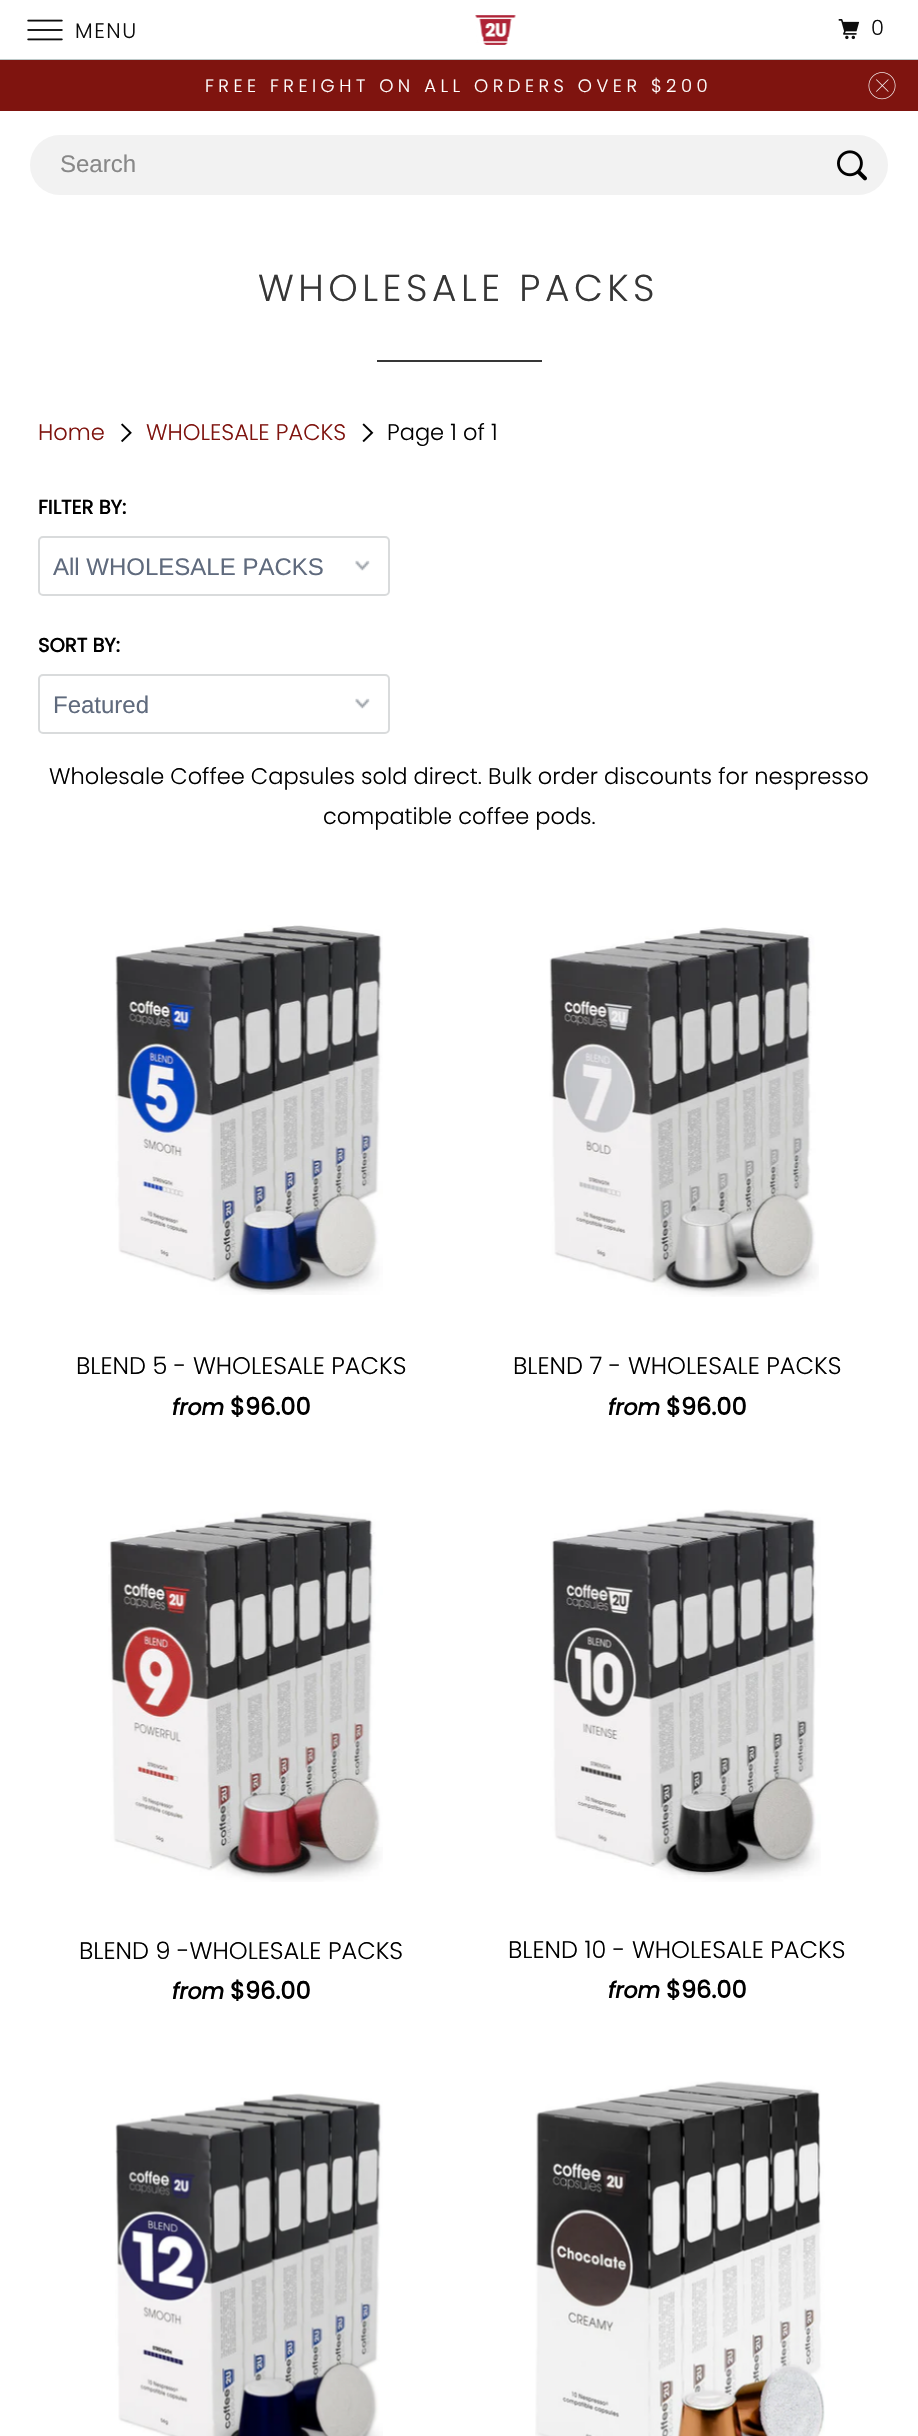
void draw(SkCanvas* canvas) {
	SkPaint paint;
	paint.setAntiAlias(true);
	auto spacedText = [&](const char* s, float x, float y, const SkFont& font, const SkPaint& ink, float letter, float word) {
		std::vector<SkGlyphID> glyphs(font.countText(s, strlen(s), SkTextEncoding::kUTF8));
		std::vector<float> xs(glyphs.size());
		font.textToGlyphs(s, strlen(s), SkTextEncoding::kUTF8, glyphs);
		font.getXPos(glyphs, xs, x);
		float extra = 0;
		for (size_t i = 0; i < glyphs.size(); i++) {
			xs[i] += extra;
			extra += letter + word * (glyphs[i] == font.unicharToGlyph(' '));
		}
		canvas->drawTextBlob(SkTextBlob::MakeFromPosHGlyphs(glyphs, xs, y, font), 0, 0, ink);
	};
	canvas->clear(0xffffffff);
	paint.setColor(0xffbcc9c9);
	canvas->drawRect(SkRect::MakeXYWH(0, 59, 918, 1), paint);
	canvas->drawImageRect(SkImages::DeferredFromEncodedData(SkData::MakeFromFileName("img1.png")), SkRect::MakeXYWH(27, 19, 36, 22), SkSamplingOptions());
	SkFont f1(fontMgr->matchFamilyStyle("Poppins", SkFontStyle(300, SkFontStyle::kNormal_Width, SkFontStyle::kUpright_Slant)), 21);
	f1.setSubpixel(true);
	paint.setColor(0xff0d0d0d);
	spacedText("MENU", 75, 38, f1, paint, 1.5, 0);
	canvas->drawImageRect(SkImages::DeferredFromEncodedData(SkData::MakeFromFileName("img2.png")), SkRect::MakeXYWH(475, 15, 41, 30), SkSamplingOptions());
	canvas->drawImageRect(SkImages::DeferredFromEncodedData(SkData::MakeFromFileName("img3.png")), SkRect::MakeXYWH(838, 19, 22, 21), SkSamplingOptions());
	spacedText("0", 871, 35, f1, paint, 1.5, 0);
	paint.setColor(0xff7f140f);
	canvas->drawRect(SkRect::MakeXYWH(0, 60, 918, 51), paint);
	SkFont f2(fontMgr->matchFamilyStyle("Poppins", SkFontStyle(300, SkFontStyle::kNormal_Width, SkFontStyle::kUpright_Slant)), 18);
	f2.setSubpixel(true);
	paint.setColor(0xffffffff);
	spacedText("FREE FREIGHT ON ALL ORDERS OVER $200", 205, 92, f2, paint, 4.5, 0);
	canvas->drawImageRect(SkImages::DeferredFromEncodedData(SkData::MakeFromFileName("img4.png")), SkRect::MakeXYWH(868, 72, 28, 28), SkSamplingOptions());
	paint.setColor(0xfff2f2f2);
	canvas->drawRoundRect(SkRect::MakeXYWH(30, 135, 858, 60), 30, 30, paint);
	SkFont f3(fontMgr->matchFamilyStyle("Liberation Sans", SkFontStyle::Normal()), 24);
	f3.setSubpixel(true);
	paint.setColor(0xff888888);
	canvas->drawString("Search", 60, 172, f3, paint);
	canvas->drawImageRect(SkImages::DeferredFromEncodedData(SkData::MakeFromFileName("img5.png")), SkRect::MakeXYWH(837, 150, 30, 31), SkSamplingOptions());
	SkFont f4(fontMgr->matchFamilyStyle("Poppins", SkFontStyle(300, SkFontStyle::kNormal_Width, SkFontStyle::kUpright_Slant)), 37.5);
	f4.setSubpixel(true);
	paint.setColor(0xff363636);
	spacedText("WHOLESALE PACKS", 258, 301, f4, paint, 4.5, 0);
	canvas->drawRect(SkRect::MakeXYWH(377, 360, 165, 2), paint);
	SkFont f5(fontMgr->matchFamilyStyle("Poppins", SkFontStyle(300, SkFontStyle::kNormal_Width, SkFontStyle::kUpright_Slant)), 22.5);
	f5.setSubpixel(true);
	paint.setColor(0xff7f140f);
	canvas->drawString("Home", 38, 440, f5, paint);
	canvas->drawImageRect(SkImages::DeferredFromEncodedData(SkData::MakeFromFileName("img6.png")), SkRect::MakeXYWH(121, 423, 11, 20), SkSamplingOptions());
	canvas->drawString("WHOLESALE PACKS", 146, 440, f5, paint);
	canvas->drawImageRect(SkImages::DeferredFromEncodedData(SkData::MakeFromFileName("img7.png")), SkRect::MakeXYWH(362, 423, 12, 20), SkSamplingOptions());
	paint.setColor(0xff000000);
	canvas->drawString("Page 1 of 1", 387, 440, f5, paint);
	SkFont f6(fontMgr->matchFamilyStyle("Poppins", SkFontStyle::Bold()), 19.5);
	f6.setSubpixel(true);
	canvas->drawString("FILTER BY:", 38, 514, f6, paint);
	canvas->drawImageRect(SkImages::DeferredFromEncodedData(SkData::MakeFromFileName("img8.png")), SkRect::MakeXYWH(355, 560, 15, 11), SkSamplingOptions());
	paint.setStroke(true);
	paint.setStrokeWidth(2);
	paint.setColor(0xffd9dbdc);
	canvas->drawRoundRect(SkRect::MakeXYWH(39, 537, 350, 58), 4, 4, paint);
	paint.setStroke(false);
	paint.setColor(0xff5f6a7d);
	canvas->drawString("All WHOLESALE PACKS", 53, 575, f3, paint);
	paint.setColor(0xff000000);
	canvas->drawString("SORT BY:", 38, 652, f6, paint);
	canvas->drawImageRect(SkImages::DeferredFromEncodedData(SkData::MakeFromFileName("img8.png")), SkRect::MakeXYWH(355, 698, 15, 11), SkSamplingOptions());
	paint.setStroke(true);
	paint.setColor(0xffd9dbdc);
	canvas->drawRoundRect(SkRect::MakeXYWH(39, 675, 350, 58), 4, 4, paint);
	paint.setStroke(false);
	paint.setColor(0xff5f6a7d);
	canvas->drawString("Featured", 53, 713, f3, paint);
	paint.setColor(0xff000000);
	canvas->drawString("Wholesale Coffee Capsules sold direct. Bulk order discounts for nespresso", 49, 784, f5, paint);
	canvas->drawString("compatible coffee pods.", 323, 824, f5, paint);
	canvas->drawImageRect(SkImages::DeferredFromEncodedData(SkData::MakeFromFileName("img9.png")), SkRect::MakeXYWH(115, 925, 268, 370), SkSamplingOptions());
	SkFont f7(fontMgr->matchFamilyStyle("Poppins", SkFontStyle(300, SkFontStyle::kNormal_Width, SkFontStyle::kUpright_Slant)), 24);
	f7.setSubpixel(true);
	canvas->drawString("BLEND 5 - WHOLESALE PACKS", 76, 1374, f7, paint);
	SkFont f8(fontMgr->matchFamilyStyle("Poppins", SkFontStyle::BoldItalic()), 22);
	f8.setSubpixel(true);
	canvas->drawString("from", 172, 1415, f8, paint);
	SkFont f9(fontMgr->matchFamilyStyle("Poppins", SkFontStyle::Bold()), 24);
	f9.setSubpixel(true);
	canvas->drawString("$96.00", 230, 1415, f9, paint);
	canvas->drawImageRect(SkImages::DeferredFromEncodedData(SkData::MakeFromFileName("img10.png")), SkRect::MakeXYWH(549, 927, 270, 370), SkSamplingOptions());
	canvas->drawString("BLEND 7 - WHOLESALE PACKS", 513, 1374, f7, paint);
	canvas->drawString("from", 608, 1415, f8, paint);
	canvas->drawString("$96.00", 666, 1415, f9, paint);
	canvas->drawImageRect(SkImages::DeferredFromEncodedData(SkData::MakeFromFileName("img11.png")), SkRect::MakeXYWH(108, 1510, 275, 372), SkSamplingOptions());
	canvas->drawString("BLEND 9 -WHOLESALE PACKS", 79, 1959, f7, paint);
	canvas->drawString("from", 172, 1999, f8, paint);
	canvas->drawString("$96.00", 230, 1999, f9, paint);
	canvas->drawImageRect(SkImages::DeferredFromEncodedData(SkData::MakeFromFileName("img12.png")), SkRect::MakeXYWH(550, 1509, 271, 373), SkSamplingOptions());
	canvas->drawString("BLEND 10 - WHOLESALE PACKS", 508, 1958, f7, paint);
	canvas->drawString("from", 608, 1998, f8, paint);
	canvas->drawString("$96.00", 666, 1998, f9, paint);
	canvas->drawImageRect(SkImages::DeferredFromEncodedData(SkData::MakeFromFileName("img13.png")), SkRect::MakeXYWH(115, 2093, 268, 343), SkSamplingOptions());
	canvas->drawImageRect(SkImages::DeferredFromEncodedData(SkData::MakeFromFileName("img14.png")), SkRect::MakeXYWH(535, 2081, 290, 355), SkSamplingOptions());
}
